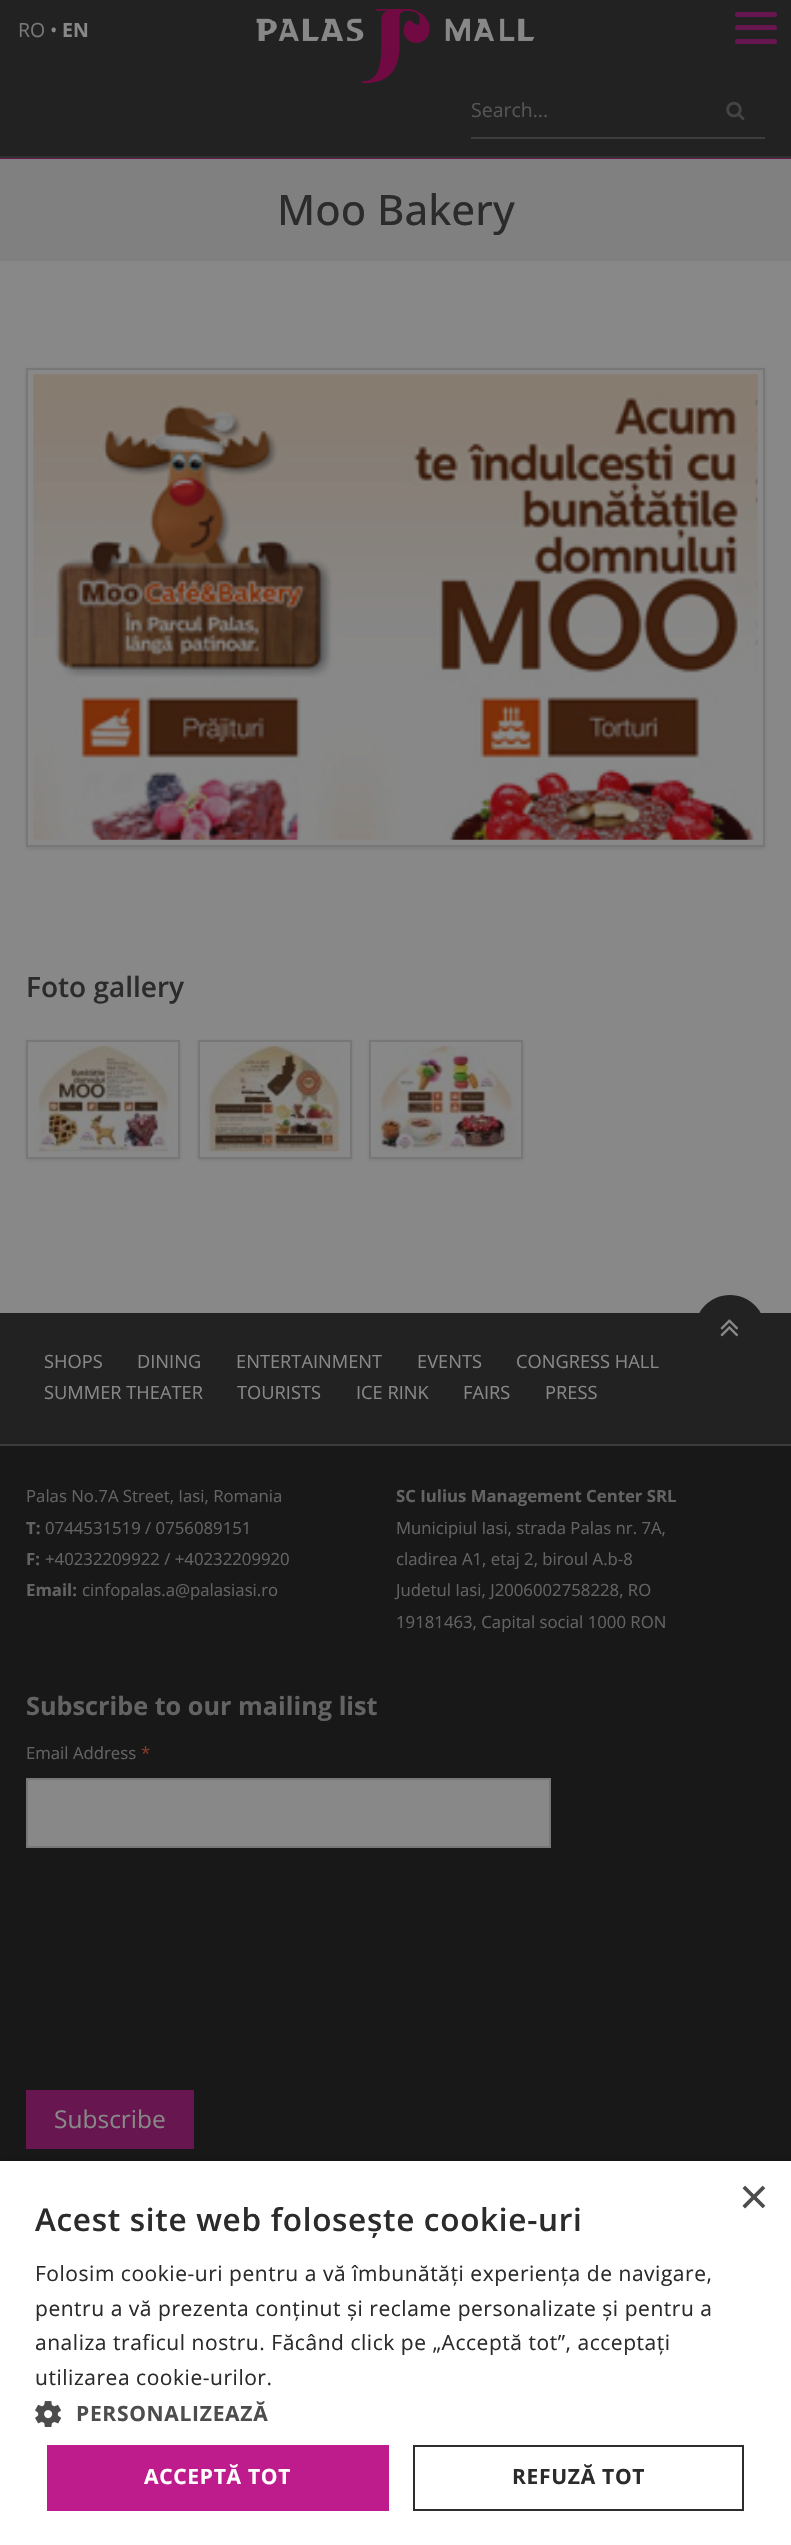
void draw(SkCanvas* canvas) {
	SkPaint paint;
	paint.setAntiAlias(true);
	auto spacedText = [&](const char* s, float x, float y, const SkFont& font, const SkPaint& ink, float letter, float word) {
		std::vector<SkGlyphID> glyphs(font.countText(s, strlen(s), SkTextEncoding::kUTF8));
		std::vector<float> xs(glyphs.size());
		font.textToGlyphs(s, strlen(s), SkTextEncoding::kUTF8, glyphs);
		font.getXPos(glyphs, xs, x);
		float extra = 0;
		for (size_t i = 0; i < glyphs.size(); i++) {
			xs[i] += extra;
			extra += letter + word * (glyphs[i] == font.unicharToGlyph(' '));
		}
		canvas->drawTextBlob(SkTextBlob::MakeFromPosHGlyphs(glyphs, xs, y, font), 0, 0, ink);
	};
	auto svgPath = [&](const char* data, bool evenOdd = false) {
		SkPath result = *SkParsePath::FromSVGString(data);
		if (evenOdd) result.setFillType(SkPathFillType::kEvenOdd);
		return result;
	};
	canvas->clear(0xff888888);
	paint.setColor(0xff222222);
	canvas->drawRect(SkRect::MakeXYWH(0, 0, 791, 156), paint);
	canvas->drawImageRect(SkImages::DeferredFromEncodedData(SkData::MakeFromFileName("img1.png")), SkRect::MakeXYWH(256, 9, 279, 75), SkSamplingOptions());
	paint.setColor(0xff67164f);
	canvas->drawRoundRect(SkRect::MakeXYWH(735, 12, 42, 5), 2.5, 2.5, paint);
	canvas->drawRoundRect(SkRect::MakeXYWH(735, 25, 42, 5), 2.5, 2.5, paint);
	canvas->drawRoundRect(SkRect::MakeXYWH(735, 39, 42, 5), 2.5, 2.5, paint);
	SkFont f1(fontMgr->matchFamilyStyle("Open Sans", SkFontStyle::Normal()), 19.5);
	f1.setSubpixel(true);
	paint.setColor(0xff777777);
	canvas->drawString("RO", 18, 37, f1, paint);
	paint.setColor(0xff888888);
	canvas->drawString("•", 50, 37, f1, paint);
	SkFont f2(fontMgr->matchFamilyStyle("Open Sans", SkFontStyle::Bold()), 19.5);
	f2.setSubpixel(true);
	canvas->drawString("EN", 62, 37, f2, paint);
	paint.setColor(0xff3d3d3d);
	canvas->drawRect(SkRect::MakeXYWH(471, 137, 294, 2), paint);
	paint.setColor(0xff555555);
	canvas->drawString("Search...", 471, 117, f1, paint);
	canvas->drawImageRect(SkImages::DeferredFromEncodedData(SkData::MakeFromFileName("img2.png")), SkRect::MakeXYWH(726, 101, 19, 19), SkSamplingOptions());
	paint.setColor(0xff303030);
	canvas->drawRect(SkRect::MakeXYWH(0, 156, 791, 2), paint);
	paint.setColor(0xff67164f);
	canvas->drawRect(SkRect::MakeXYWH(0, 158, 791, 1), paint);
	paint.setColor(0xff808080);
	canvas->drawRect(SkRect::MakeXYWH(0, 159, 791, 102), paint);
	SkFont f3(fontMgr->matchFamilyStyle("Open Sans", SkFontStyle(500, SkFontStyle::kNormal_Width, SkFontStyle::kUpright_Slant)), 42);
	f3.setSubpixel(true);
	paint.setColor(0xff2b2b2b);
	canvas->drawString("Moo Bakery", 277, 225, f3, paint);
	paint.setColor(0x1a090909);
	paint.setMaskFilter(SkMaskFilter::MakeBlur(kNormal_SkBlurStyle, 2));
	canvas->drawRect(SkRect::MakeXYWH(26, 369, 739, 480), paint);
	paint.setMaskFilter(nullptr);
	paint.setColor(0xff888888);
	canvas->drawRect(SkRect::MakeXYWH(27, 369, 737, 477), paint);
	paint.setStroke(true);
	paint.setStrokeWidth(2);
	paint.setColor(0xff777777);
	canvas->drawRect(SkRect::MakeXYWH(27, 369, 737, 477), paint);
	canvas->drawImageRect(SkImages::DeferredFromEncodedData(SkData::MakeFromFileName("img3.png")), SkRect::MakeXYWH(33, 374, 725, 466), SkSamplingOptions());
	SkFont f4(fontMgr->matchFamilyStyle("Open Sans", SkFontStyle(600, SkFontStyle::kNormal_Width, SkFontStyle::kUpright_Slant)), 28);
	f4.setSubpixel(true);
	paint.setStroke(false);
	paint.setColor(0xff2b2b2b);
	canvas->drawString("Foto gallery", 26, 997, f4, paint);
	paint.setColor(0x1a090909);
	paint.setMaskFilter(SkMaskFilter::MakeBlur(kNormal_SkBlurStyle, 2));
	canvas->drawRect(SkRect::MakeXYWH(26, 1041, 154, 119), paint);
	paint.setMaskFilter(nullptr);
	paint.setColor(0xff888888);
	canvas->drawRect(SkRect::MakeXYWH(27, 1041, 152, 117), paint);
	paint.setStroke(true);
	paint.setColor(0xff777777);
	canvas->drawRect(SkRect::MakeXYWH(27, 1041, 152, 117), paint);
	canvas->drawImageRect(SkImages::DeferredFromEncodedData(SkData::MakeFromFileName("img4.png")), SkRect::MakeXYWH(33, 1046, 140, 106), SkSamplingOptions());
	paint.setStroke(false);
	paint.setColor(0x1a090909);
	paint.setMaskFilter(SkMaskFilter::MakeBlur(kNormal_SkBlurStyle, 2));
	canvas->drawRect(SkRect::MakeXYWH(198, 1041, 154, 119), paint);
	paint.setMaskFilter(nullptr);
	paint.setColor(0xff888888);
	canvas->drawRect(SkRect::MakeXYWH(199, 1041, 152, 117), paint);
	paint.setStroke(true);
	paint.setColor(0xff777777);
	canvas->drawRect(SkRect::MakeXYWH(199, 1041, 152, 117), paint);
	canvas->drawImageRect(SkImages::DeferredFromEncodedData(SkData::MakeFromFileName("img5.png")), SkRect::MakeXYWH(205, 1046, 140, 106), SkSamplingOptions());
	paint.setStroke(false);
	paint.setColor(0x1a090909);
	paint.setMaskFilter(SkMaskFilter::MakeBlur(kNormal_SkBlurStyle, 2));
	canvas->drawRect(SkRect::MakeXYWH(369, 1041, 154, 119), paint);
	paint.setMaskFilter(nullptr);
	paint.setColor(0xff888888);
	canvas->drawRect(SkRect::MakeXYWH(370, 1041, 152, 117), paint);
	paint.setStroke(true);
	paint.setColor(0xff777777);
	canvas->drawRect(SkRect::MakeXYWH(370, 1041, 152, 117), paint);
	canvas->drawImageRect(SkImages::DeferredFromEncodedData(SkData::MakeFromFileName("img6.png")), SkRect::MakeXYWH(376, 1046, 140, 106), SkSamplingOptions());
	paint.setStroke(false);
	paint.setColor(0xff181818);
	canvas->drawRect(SkRect::MakeXYWH(0, 1446, 791, 715), paint);
	paint.setColor(0xff222222);
	canvas->drawRect(SkRect::MakeXYWH(0, 1313, 791, 131), paint);
	paint.setColor(0xff3d3d3d);
	canvas->drawRect(SkRect::MakeXYWH(0, 1444, 791, 2), paint);
	SkFont f5(fontMgr->matchFamilyStyle("Open Sans", SkFontStyle::Normal()), 18.25);
	f5.setSubpixel(true);
	paint.setColor(0xff888888);
	canvas->drawString("SHOPS", 44, 1368, f5, paint);
	canvas->drawString("DINING", 137, 1368, f5, paint);
	canvas->drawString("ENTERTAINMENT", 236, 1368, f5, paint);
	canvas->drawString("EVENTS", 417, 1368, f5, paint);
	canvas->drawString("CONGRESS HALL", 516, 1368, f5, paint);
	canvas->drawString("SUMMER THEATER", 44, 1399, f5, paint);
	canvas->drawString("TOURISTS", 237, 1399, f5, paint);
	canvas->drawString("ICE RINK", 356, 1399, f5, paint);
	canvas->drawString("FAIRS", 463, 1399, f5, paint);
	canvas->drawString("PRESS", 545, 1399, f5, paint);
	paint.setColor(0xff222222);
	canvas->drawPath(svgPath("M730 1295C749.5 1295 765 1310.5 765 1330V1400H695V1330C695 1310.5 710.5 1295 730 1295Z"), paint);
	canvas->drawImageRect(SkImages::DeferredFromEncodedData(SkData::MakeFromFileName("img7.png")), SkRect::MakeXYWH(720, 1319, 19, 18), SkSamplingOptions());
	SkFont f6(fontMgr->matchFamilyStyle("Open Sans", SkFontStyle::Normal()), 16.75);
	f6.setSubpixel(true);
	paint.setColor(0xff636364);
	canvas->drawString("Palas No.7A Street, Iasi, Romania", 26, 1502, f6, paint);
	SkFont f7(fontMgr->matchFamilyStyle("Open Sans", SkFontStyle::Bold()), 16.75);
	f7.setSubpixel(true);
	canvas->drawString("T:", 26, 1534, f7, paint);
	canvas->drawString("0744531519 / 0756089151", 45, 1534, f6, paint);
	canvas->drawString("F:", 26, 1565, f7, paint);
	canvas->drawString("+40232209922 / +40232209920", 45, 1565, f6, paint);
	canvas->drawString("Email:", 26, 1596, f7, paint);
	canvas->drawString("cinfopalas.a@palasiasi.ro", 82, 1596, f6, paint);
	canvas->drawString("SC Iulius Management Center SRL", 396, 1502, f7, paint);
	canvas->drawString("Municipiul Iasi, strada Palas nr. 7A,", 396, 1534, f6, paint);
	canvas->drawString("cladirea A1, etaj 2, biroul A.b-8", 396, 1565, f6, paint);
	canvas->drawString("Judetul Iasi, J2006002758228, RO", 396, 1596, f6, paint);
	canvas->drawString("19181463, Capital social 1000 RON", 396, 1628, f6, paint);
	SkFont f8(fontMgr->matchFamilyStyle("Open Sans", SkFontStyle::Bold()), 25.25);
	f8.setSubpixel(true);
	canvas->drawString("Subscribe to our mailing list", 26, 1715, f8, paint);
	canvas->drawString("Email Address", 26, 1759, f6, paint);
	paint.setColor(0xff883a2c);
	canvas->drawString("*", 141, 1759, f6, paint);
	paint.setColor(0xff888888);
	canvas->drawRect(SkRect::MakeXYWH(27, 1779, 523, 68), paint);
	paint.setStroke(true);
	paint.setColor(0xff777777);
	canvas->drawRect(SkRect::MakeXYWH(27, 1779, 523, 68), paint);
	paint.setStroke(false);
	paint.setColor(0xff67164f);
	canvas->drawRect(SkRect::MakeXYWH(26, 2090, 168, 59), paint);
	SkFont f9(fontMgr->matchFamilyStyle("Open Sans", SkFontStyle::Normal()), 24.5);
	f9.setSubpixel(true);
	paint.setColor(0xff888888);
	canvas->drawString("Subscribe", 54, 2128, f9, paint);
	paint.setColor(0x59000000);
	paint.setMaskFilter(SkMaskFilter::MakeBlur(kNormal_SkBlurStyle, 7));
	canvas->drawRect(SkRect::MakeXYWH(2, 2165, 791, 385), paint);
	paint.setMaskFilter(nullptr);
	paint.setColor(0xffffffff);
	canvas->drawRect(SkRect::MakeXYWH(0, 2161, 791, 384), paint);
	SkFont f10(fontMgr->matchFamilyStyle("Liberation Sans", SkFontStyle::Normal()), 51);
	f10.setSubpixel(true);
	paint.setColor(0xff4d4d4d);
	canvas->drawString("×", 739, 2214, f10, paint);
	SkFont f11(fontMgr->matchFamilyStyle("Open Sans", SkFontStyle(600, SkFontStyle::kNormal_Width, SkFontStyle::kUpright_Slant)), 31.5);
	f11.setSubpixel(true);
	paint.setColor(0xff2b2b2b);
	spacedText("Acest site web folosește cookie-uri", 35, 2231, f11, paint, 0.7, 0);
	SkFont f12(fontMgr->matchFamilyStyle("Open Sans", SkFontStyle::Normal()), 21);
	f12.setSubpixel(true);
	spacedText("Folosim cookie-uri pentru a vă îmbunătăți experiența de navigare,", 35, 2281, f12, paint, 0.53, 0);
	spacedText("pentru a vă prezenta conținut și reclame personalizate și pentru a", 35, 2316, f12, paint, 0.53, 0);
	spacedText("analiza traficul nostru. Făcând click pe „Acceptă tot”, acceptați", 35, 2350, f12, paint, 0.53, 0);
	spacedText("utilizarea cookie-urilor.", 35, 2385, f12, paint, 0.53, 0);
	canvas->drawImageRect(SkImages::DeferredFromEncodedData(SkData::MakeFromFileName("img8.png")), SkRect::MakeXYWH(35, 2401, 26, 26), SkSamplingOptions());
	SkFont f13(fontMgr->matchFamilyStyle("Open Sans", SkFontStyle::Bold()), 21);
	f13.setSubpixel(true);
	paint.setColor(0xff4d4d4d);
	spacedText("PERSONALIZEAZĂ", 76, 2421, f13, paint, 0.7, 0);
	paint.setColor(0xffbe1b8c);
	canvas->drawRect(SkRect::MakeXYWH(47, 2445, 342, 66), paint);
	paint.setColor(0xffffffff);
	spacedText("ACCEPTĂ TOT", 144, 2484, f13, paint, 0.7, 0);
	paint.setStroke(true);
	paint.setColor(0xff2d2d2d);
	canvas->drawRect(SkRect::MakeXYWH(414, 2446, 329, 64), paint);
	paint.setStroke(false);
	paint.setColor(0xff2b2b2b);
	spacedText("REFUZĂ TOT", 512, 2484, f13, paint, 0.7, 0);
}
